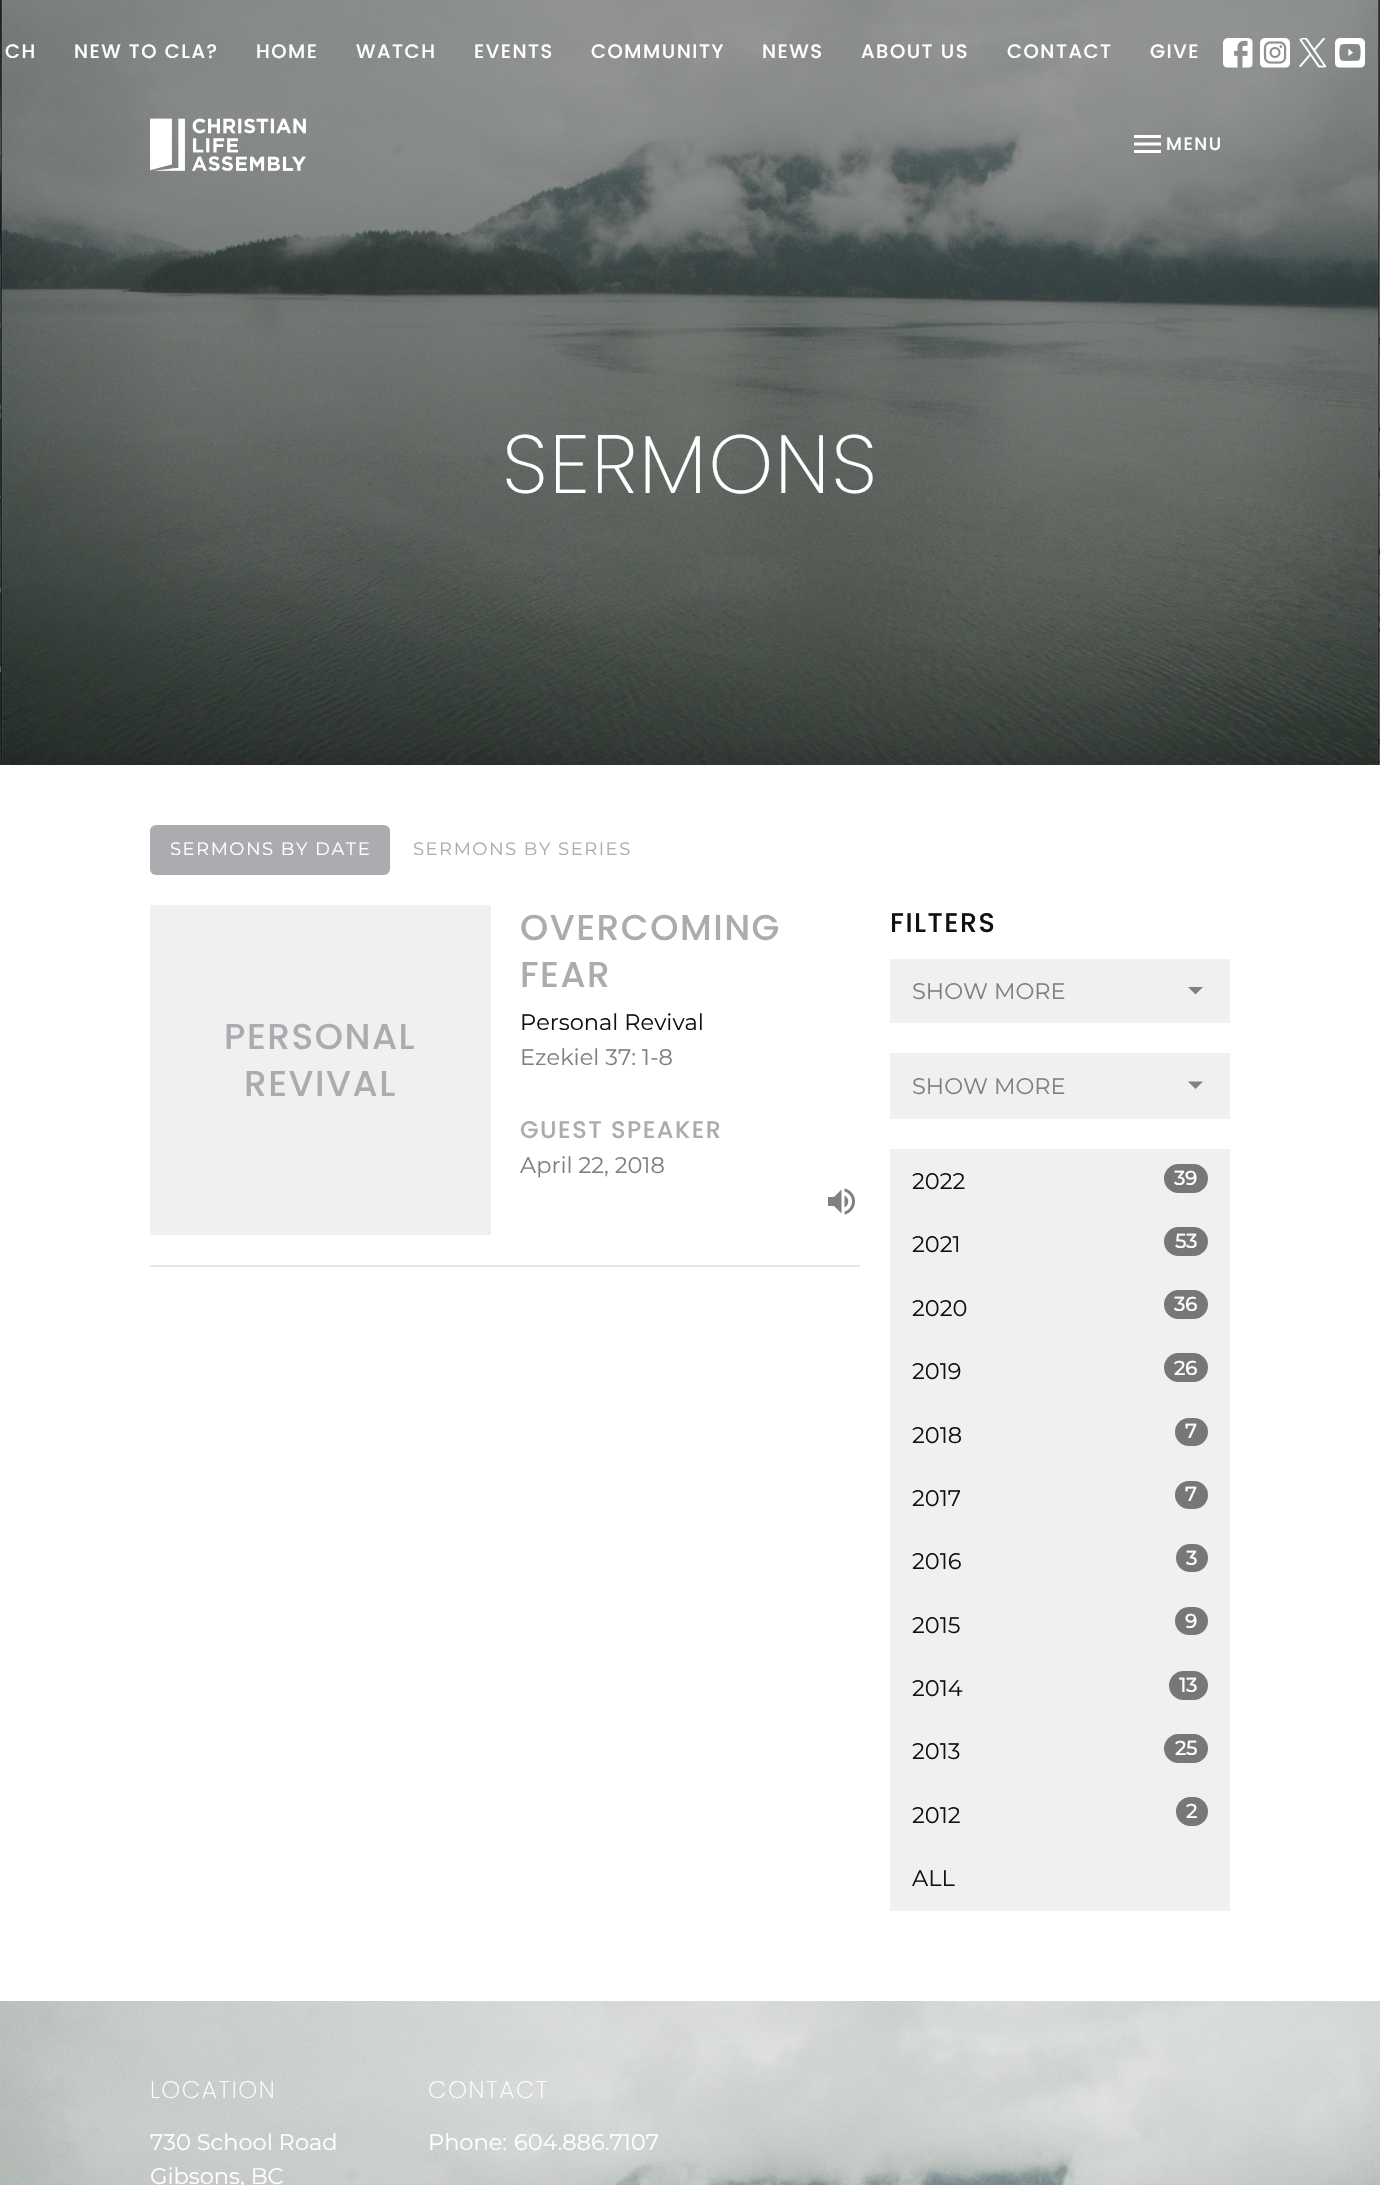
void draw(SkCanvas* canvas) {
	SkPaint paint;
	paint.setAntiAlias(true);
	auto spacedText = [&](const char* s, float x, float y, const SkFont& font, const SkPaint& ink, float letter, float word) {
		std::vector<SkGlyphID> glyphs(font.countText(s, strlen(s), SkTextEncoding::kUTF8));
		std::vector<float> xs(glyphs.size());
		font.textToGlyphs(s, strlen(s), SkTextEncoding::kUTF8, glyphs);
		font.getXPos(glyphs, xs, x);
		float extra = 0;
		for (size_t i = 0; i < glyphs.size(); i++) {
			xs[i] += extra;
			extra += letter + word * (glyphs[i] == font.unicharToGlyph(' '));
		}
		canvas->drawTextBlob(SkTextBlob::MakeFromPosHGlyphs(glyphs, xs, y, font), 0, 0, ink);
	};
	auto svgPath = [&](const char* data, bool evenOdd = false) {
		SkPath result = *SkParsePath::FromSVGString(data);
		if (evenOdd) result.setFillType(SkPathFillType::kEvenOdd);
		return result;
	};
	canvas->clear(0xffffffff);
	canvas->drawImageRect(SkImages::DeferredFromEncodedData(SkData::MakeFromFileName("img7.png")), SkRect::MakeXYWH(0, 0, 1380, 765), SkSamplingOptions());
	SkFont f1(fontMgr->matchFamilyStyle("Poppins", SkFontStyle(500, SkFontStyle::kNormal_Width, SkFontStyle::kUpright_Slant)), 19.5);
	f1.setSubpixel(true);
	paint.setColor(0xffffffff);
	spacedText("CH", 5, 58, f1, paint, 1.5, 0);
	spacedText("NEW TO CLA?", 74, 58, f1, paint, 1.5, 0);
	spacedText("HOME", 256, 58, f1, paint, 1.5, 0);
	spacedText("WATCH", 356, 58, f1, paint, 1.5, 0);
	spacedText("EVENTS", 474, 58, f1, paint, 1.5, 0);
	spacedText("COMMUNITY", 591, 58, f1, paint, 1.5, 0);
	spacedText("NEWS", 762, 58, f1, paint, 1.5, 0);
	spacedText("ABOUT US", 861, 58, f1, paint, 1.5, 0);
	spacedText("CONTACT", 1007, 58, f1, paint, 1.5, 0);
	spacedText("GIVE", 1150, 58, f1, paint, 1.5, 0);
	canvas->drawImageRect(SkImages::DeferredFromEncodedData(SkData::MakeFromFileName("img1.png")), SkRect::MakeXYWH(1223, 38, 30, 30), SkSamplingOptions());
	canvas->drawImageRect(SkImages::DeferredFromEncodedData(SkData::MakeFromFileName("img2.png")), SkRect::MakeXYWH(1260, 38, 30, 30), SkSamplingOptions());
	canvas->drawImageRect(SkImages::DeferredFromEncodedData(SkData::MakeFromFileName("img3.png")), SkRect::MakeXYWH(1299, 38, 28, 30), SkSamplingOptions());
	canvas->drawImageRect(SkImages::DeferredFromEncodedData(SkData::MakeFromFileName("img4.png")), SkRect::MakeXYWH(1335, 38, 30, 30), SkSamplingOptions());
	canvas->drawImageRect(SkImages::DeferredFromEncodedData(SkData::MakeFromFileName("img5.png")), SkRect::MakeXYWH(150, 118, 156, 53), SkSamplingOptions());
	canvas->drawImageRect(SkImages::DeferredFromEncodedData(SkData::MakeFromFileName("img6.png")), SkRect::MakeXYWH(1134, 135, 27, 18), SkSamplingOptions());
	SkFont f2(fontMgr->matchFamilyStyle("Poppins", SkFontStyle(500, SkFontStyle::kNormal_Width, SkFontStyle::kUpright_Slant)), 18);
	f2.setSubpixel(true);
	spacedText("MENU", 1166, 150, f2, paint, 1.5, 0);
	SkFont f3(fontMgr->matchFamilyStyle("Poppins", SkFontStyle(200, SkFontStyle::kNormal_Width, SkFontStyle::kUpright_Slant)), 82.5);
	f3.setSubpixel(true);
	spacedText("SERMONS", 502, 493, f3, paint, 1.5, 0);
	paint.setColor(0xffacacb0);
	canvas->drawRoundRect(SkRect::MakeXYWH(150, 825, 240, 50), 6, 6, paint);
	SkFont f4(fontMgr->matchFamilyStyle("Montserrat", SkFontStyle::Normal()), 18);
	f4.setSubpixel(true);
	paint.setColor(0xffffffff);
	spacedText("SERMONS BY DATE", 170, 855, f4, paint, 1.5, 0);
	paint.setColor(0xffacacb0);
	spacedText("SERMONS BY SERIES", 413, 855, f4, paint, 1.5, 0);
	paint.setColor(0xffe6e6e6);
	canvas->drawRect(SkRect::MakeXYWH(150, 1265, 710, 2), paint);
	paint.setColor(0xfff0f0f0);
	canvas->drawRect(SkRect::MakeXYWH(150, 905, 341, 330), paint);
	SkFont f5(fontMgr->matchFamilyStyle("Poppins", SkFontStyle(500, SkFontStyle::kNormal_Width, SkFontStyle::kUpright_Slant)), 36);
	f5.setSubpixel(true);
	paint.setColor(0xffacacb0);
	spacedText("PERSONAL", 224, 1049, f5, paint, 1.5, 0);
	spacedText("REVIVAL", 244, 1096, f5, paint, 1.5, 0);
	spacedText("OVERCOMING", 520, 940, f5, paint, 1.5, 0);
	spacedText("FEAR", 520, 987, f5, paint, 1.5, 0);
	SkFont f6(fontMgr->matchFamilyStyle("Montserrat", SkFontStyle::Normal()), 22.5);
	f6.setSubpixel(true);
	paint.setColor(0xff111111);
	canvas->drawString("Personal Revival", 520, 1030, f6, paint);
	paint.setColor(0xff808080);
	canvas->drawString("Ezekiel 37: 1-8", 520, 1065, f6, paint);
	SkFont f7(fontMgr->matchFamilyStyle("Poppins", SkFontStyle(500, SkFontStyle::kNormal_Width, SkFontStyle::kUpright_Slant)), 24);
	f7.setSubpixel(true);
	paint.setColor(0xffacacb0);
	spacedText("GUEST SPEAKER", 520, 1138, f7, paint, 1.5, 0);
	paint.setColor(0xff808080);
	canvas->drawString("April 22, 2018", 520, 1173, f6, paint);
	canvas->drawImageRect(SkImages::DeferredFromEncodedData(SkData::MakeFromFileName("img8.png")), SkRect::MakeXYWH(828, 1188, 27, 27), SkSamplingOptions());
	SkFont f8(fontMgr->matchFamilyStyle("Poppins", SkFontStyle(500, SkFontStyle::kNormal_Width, SkFontStyle::kUpright_Slant)), 27);
	f8.setSubpixel(true);
	paint.setColor(0xff111111);
	spacedText("FILTERS", 890, 932, f8, paint, 1.5, 0);
	paint.setColor(0xfff0f0f0);
	canvas->drawRect(SkRect::MakeXYWH(890, 959, 340, 64), paint);
	paint.setColor(0xff808080);
	canvas->drawString("SHOW MORE", 912, 999, f6, paint);
	canvas->drawPath(svgPath("M1188 987L1195.5 994.5L1203 987Z"), paint);
	paint.setColor(0xfff0f0f0);
	canvas->drawRect(SkRect::MakeXYWH(890, 1053, 340, 66), paint);
	paint.setColor(0xff808080);
	canvas->drawString("SHOW MORE", 912, 1094, f6, paint);
	canvas->drawPath(svgPath("M1188 1081.5L1195.5 1089L1203 1081.5Z"), paint);
	paint.setColor(0xfff0f0f0);
	canvas->drawRect(SkRect::MakeXYWH(890, 1149, 340, 762), paint);
	paint.setColor(0xff111111);
	canvas->drawString("2022", 912, 1189, f6, paint);
	paint.setColor(0xff777777);
	canvas->drawRoundRect(SkRect::MakeXYWH(1164, 1164, 44, 29), 14.5, 14.5, paint);
	SkFont f9(fontMgr->matchFamilyStyle("Montserrat", SkFontStyle::Bold()), 19.5);
	f9.setSubpixel(true);
	paint.setColor(0xffffffff);
	canvas->drawString("39", 1174, 1185, f9, paint);
	paint.setColor(0xff111111);
	canvas->drawString("2021", 912, 1252, f6, paint);
	paint.setColor(0xff777777);
	canvas->drawRoundRect(SkRect::MakeXYWH(1164, 1227, 44, 29), 14.5, 14.5, paint);
	paint.setColor(0xffffffff);
	canvas->drawString("53", 1175, 1248, f9, paint);
	paint.setColor(0xff111111);
	canvas->drawString("2020", 912, 1316, f6, paint);
	paint.setColor(0xff777777);
	canvas->drawRoundRect(SkRect::MakeXYWH(1164, 1290, 44, 29), 14.5, 14.5, paint);
	paint.setColor(0xffffffff);
	canvas->drawString("36", 1174, 1311, f9, paint);
	paint.setColor(0xff111111);
	canvas->drawString("2019", 912, 1379, f6, paint);
	paint.setColor(0xff777777);
	canvas->drawRoundRect(SkRect::MakeXYWH(1164, 1353, 44, 29), 14.5, 14.5, paint);
	paint.setColor(0xffffffff);
	canvas->drawString("26", 1174, 1375, f9, paint);
	paint.setColor(0xff111111);
	canvas->drawString("2018", 912, 1443, f6, paint);
	paint.setColor(0xff777777);
	canvas->drawRoundRect(SkRect::MakeXYWH(1175, 1418, 33, 28), 14, 14, paint);
	paint.setColor(0xffffffff);
	canvas->drawString("7", 1185, 1438, f9, paint);
	paint.setColor(0xff111111);
	canvas->drawString("2017", 912, 1506, f6, paint);
	paint.setColor(0xff777777);
	canvas->drawRoundRect(SkRect::MakeXYWH(1175, 1481, 33, 28), 14, 14, paint);
	paint.setColor(0xffffffff);
	canvas->drawString("7", 1185, 1501, f9, paint);
	paint.setColor(0xff111111);
	canvas->drawString("2016", 912, 1569, f6, paint);
	paint.setColor(0xff777777);
	canvas->drawRoundRect(SkRect::MakeXYWH(1176, 1544, 32, 28), 14, 14, paint);
	paint.setColor(0xffffffff);
	canvas->drawString("3", 1186, 1565, f9, paint);
	paint.setColor(0xff111111);
	canvas->drawString("2015", 912, 1633, f6, paint);
	paint.setColor(0xff777777);
	canvas->drawRoundRect(SkRect::MakeXYWH(1175, 1607, 33, 28), 14, 14, paint);
	paint.setColor(0xffffffff);
	canvas->drawString("9", 1185, 1628, f9, paint);
	paint.setColor(0xff111111);
	canvas->drawString("2014", 912, 1696, f6, paint);
	paint.setColor(0xff777777);
	canvas->drawRoundRect(SkRect::MakeXYWH(1169, 1671, 39, 29), 14.5, 14.5, paint);
	paint.setColor(0xffffffff);
	canvas->drawString("13", 1179, 1692, f9, paint);
	paint.setColor(0xff111111);
	canvas->drawString("2013", 912, 1759, f6, paint);
	paint.setColor(0xff777777);
	canvas->drawRoundRect(SkRect::MakeXYWH(1164, 1734, 44, 29), 14.5, 14.5, paint);
	paint.setColor(0xffffffff);
	canvas->drawString("25", 1175, 1755, f9, paint);
	paint.setColor(0xff111111);
	canvas->drawString("2012", 912, 1823, f6, paint);
	paint.setColor(0xff777777);
	canvas->drawRoundRect(SkRect::MakeXYWH(1176, 1797, 32, 29), 14.5, 14.5, paint);
	paint.setColor(0xffffffff);
	canvas->drawString("2", 1186, 1818, f9, paint);
	paint.setColor(0xff111111);
	canvas->drawString("ALL", 912, 1886, f6, paint);
	canvas->drawImageRect(SkImages::DeferredFromEncodedData(SkData::MakeFromFileName("img9.png")), SkRect::MakeXYWH(0, 2001, 1380, 184), SkSamplingOptions());
	SkFont f10(fontMgr->matchFamilyStyle("Poppins", SkFontStyle(200, SkFontStyle::kNormal_Width, SkFontStyle::kUpright_Slant)), 24);
	f10.setSubpixel(true);
	paint.setColor(0xffffffff);
	spacedText("LOCATION", 150, 2098, f10, paint, 1.5, 0);
	canvas->drawString("730 School Road", 150, 2150, f6, paint);
	canvas->drawString("Gibsons, BC", 150, 2184, f6, paint);
	spacedText("CONTACT", 428, 2098, f10, paint, 1.5, 0);
	canvas->drawString("Phone:", 428, 2150, f6, paint);
	canvas->drawString("604.886.7107", 514, 2150, f6, paint);
}
